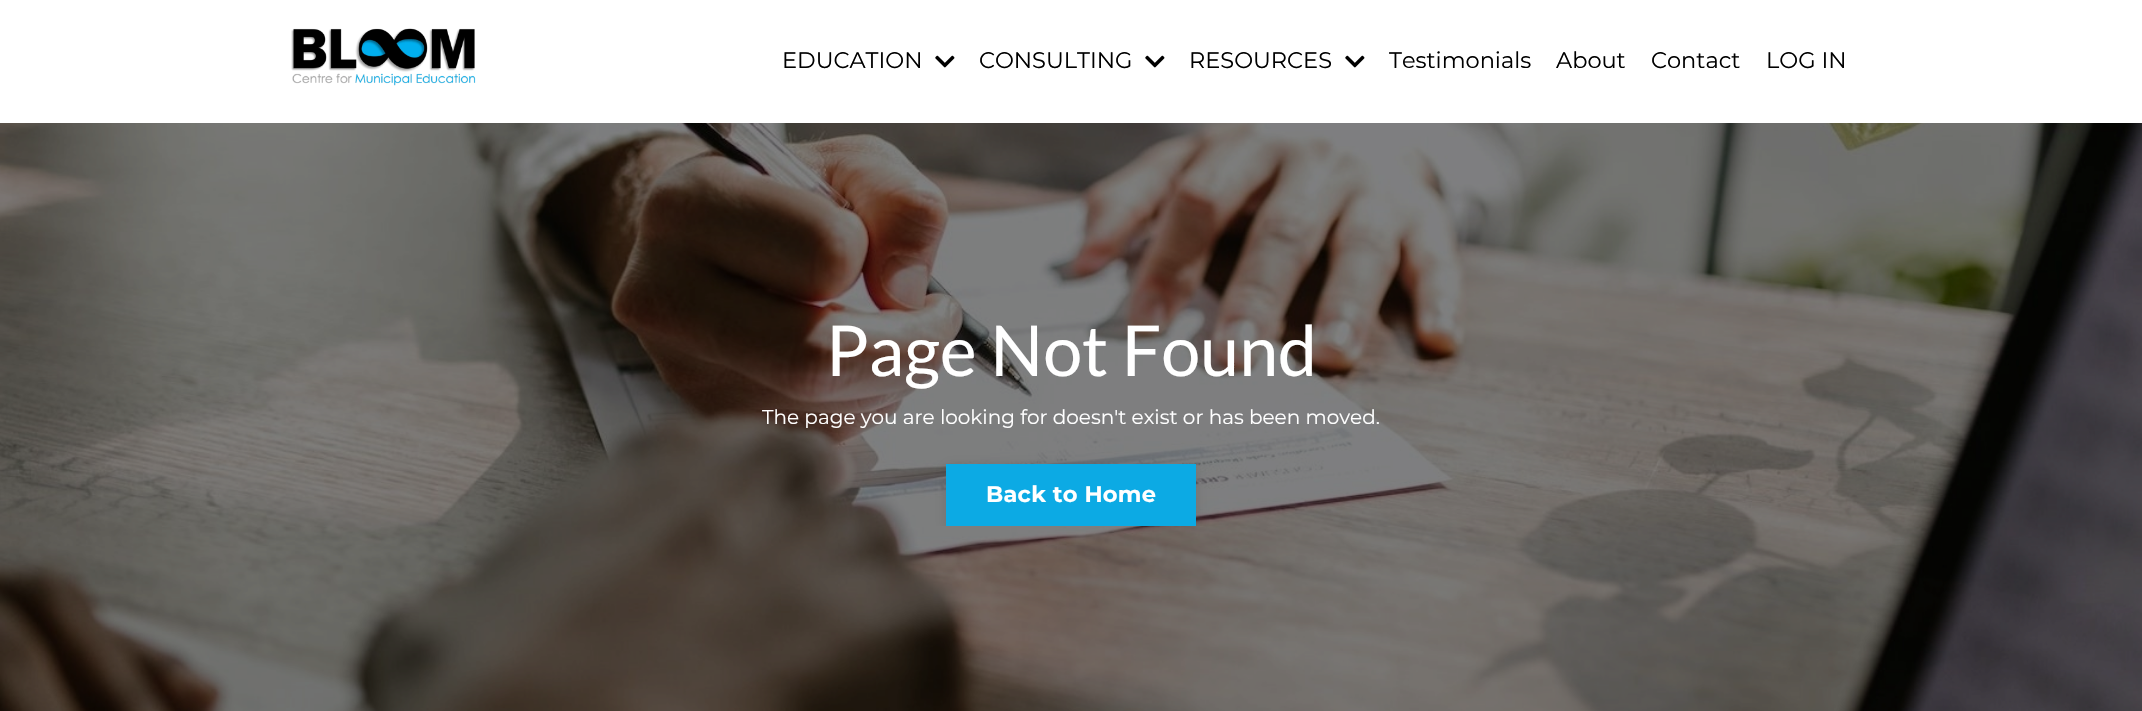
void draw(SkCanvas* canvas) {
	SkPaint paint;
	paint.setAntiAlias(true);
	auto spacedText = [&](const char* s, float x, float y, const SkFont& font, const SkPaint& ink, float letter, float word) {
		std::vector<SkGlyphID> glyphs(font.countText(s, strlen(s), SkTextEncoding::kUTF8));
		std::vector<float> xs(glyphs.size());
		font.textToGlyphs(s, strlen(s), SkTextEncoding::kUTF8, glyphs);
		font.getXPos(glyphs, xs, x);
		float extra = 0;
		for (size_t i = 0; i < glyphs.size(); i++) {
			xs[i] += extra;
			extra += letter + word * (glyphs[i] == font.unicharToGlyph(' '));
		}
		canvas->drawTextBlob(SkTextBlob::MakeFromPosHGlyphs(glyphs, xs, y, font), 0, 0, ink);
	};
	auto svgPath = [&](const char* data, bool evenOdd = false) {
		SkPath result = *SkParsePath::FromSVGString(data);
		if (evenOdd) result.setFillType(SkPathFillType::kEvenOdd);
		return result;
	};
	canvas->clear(0xffffffff);
	canvas->drawImageRect(SkImages::DeferredFromEncodedData(SkData::MakeFromFileName("img1.png")), SkRect::MakeXYWH(291, 28, 185, 58), SkSamplingOptions());
	SkFont f1(fontMgr->matchFamilyStyle("Montserrat", SkFontStyle::Normal()), 22.5);
	f1.setSubpixel(true);
	paint.setColor(0xff000000);
	canvas->drawString("EDUCATION", 782, 68, f1, paint);
	canvas->drawImageRect(SkImages::DeferredFromEncodedData(SkData::MakeFromFileName("img2.png")), SkRect::MakeXYWH(935, 55, 20, 13), SkSamplingOptions());
	canvas->drawString("CONSULTING", 979, 68, f1, paint);
	canvas->drawImageRect(SkImages::DeferredFromEncodedData(SkData::MakeFromFileName("img2.png")), SkRect::MakeXYWH(1145, 55, 20, 13), SkSamplingOptions());
	canvas->drawString("RESOURCES", 1189, 68, f1, paint);
	canvas->drawImageRect(SkImages::DeferredFromEncodedData(SkData::MakeFromFileName("img2.png")), SkRect::MakeXYWH(1345, 55, 20, 13), SkSamplingOptions());
	canvas->drawString("Testimonials", 1389, 68, f1, paint);
	canvas->drawString("About", 1556, 68, f1, paint);
	canvas->drawString("Contact", 1651, 68, f1, paint);
	canvas->drawString("LOG IN", 1766, 68, f1, paint);
	canvas->drawImageRect(SkImages::DeferredFromEncodedData(SkData::MakeFromFileName("img3.png")), SkRect::MakeXYWH(0, 123, 2142, 588), SkSamplingOptions());
	SkFont f2(fontMgr->matchFamilyStyle("Lato", SkFontStyle::Normal()), 70);
	f2.setSubpixel(true);
	paint.setColor(0xffffffff);
	canvas->drawString("Page Not Found", 826, 376, f2, paint);
	SkFont f3(fontMgr->matchFamilyStyle("Montserrat", SkFontStyle::Normal()), 20);
	f3.setSubpixel(true);
	canvas->drawString("The page you are looking for doesn't exist or has been moved.", 762, 424, f3, paint);
	canvas->save();
	canvas->clipPath(svgPath("M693 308H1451C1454 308 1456 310 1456 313V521C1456 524 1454 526 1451 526H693C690 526 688 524 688 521V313C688 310 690 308 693 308Z"), true);
	paint.setColor(0x1a000000);
	paint.setMaskFilter(SkMaskFilter::MakeBlur(kNormal_SkBlurStyle, 6));
	canvas->drawRect(SkRect::MakeXYWH(946, 466, 250, 63), paint);
	paint.setMaskFilter(nullptr);
	canvas->restore();
	paint.setColor(0xff0caae4);
	canvas->drawRect(SkRect::MakeXYWH(946, 464, 250, 62), paint);
	SkFont f4(fontMgr->matchFamilyStyle("Montserrat", SkFontStyle::Bold()), 22.5);
	f4.setSubpixel(true);
	paint.setColor(0xffffffff);
	spacedText("Back to Home", 986, 502, f4, paint, 0.25, 0);
}
